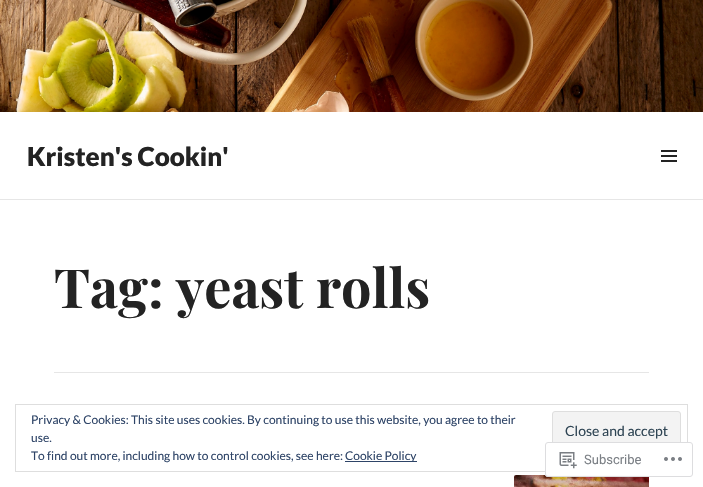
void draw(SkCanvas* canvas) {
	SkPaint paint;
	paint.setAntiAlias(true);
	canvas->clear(0xffffffff);
	canvas->drawImageRect(SkImages::DeferredFromEncodedData(SkData::MakeFromFileName("img1.png")), SkRect::MakeXYWH(0, 0, 703, 112), SkSamplingOptions());
	paint.setColor(0xffe6e6e6);
	canvas->drawRect(SkRect::MakeXYWH(0, 199, 703, 1), paint);
	SkFont f1(fontMgr->matchFamilyStyle("Lato", SkFontStyle(900, SkFontStyle::kNormal_Width, SkFontStyle::kUpright_Slant)), 26);
	f1.setSubpixel(true);
	paint.setColor(0xff232323);
	canvas->drawString("Kristen's Cookin'", 27, 166, f1, paint);
	canvas->drawImageRect(SkImages::DeferredFromEncodedData(SkData::MakeFromFileName("img2.png")), SkRect::MakeXYWH(661, 150, 16, 12), SkSamplingOptions());
	paint.setColor(0xffe6e6e6);
	canvas->drawRect(SkRect::MakeXYWH(54, 372, 595, 1), paint);
	SkFont f2(fontMgr->matchFamilyStyle("Playfair Display", SkFontStyle::Bold()), 54);
	f2.setSubpixel(true);
	paint.setColor(0xff232323);
	canvas->drawString("Tag: yeast rolls", 54, 308, f2, paint);
	canvas->drawImageRect(SkImages::DeferredFromEncodedData(SkData::MakeFromFileName("img3.png")), SkRect::MakeXYWH(514, 475, 135, 12), SkSamplingOptions());
	paint.setStroke(true);
	paint.setStrokeWidth(1);
	paint.setColor(0xffdedede);
	canvas->drawRect(SkRect::MakeXYWH(15.5, 404.5, 672, 67), paint);
	SkFont f3(fontMgr->matchFamilyStyle("Lato", SkFontStyle::Normal()), 12);
	f3.setSubpixel(true);
	paint.setStroke(false);
	paint.setColor(0xff2e4467);
	canvas->drawString("Privacy & Cookies: This site uses cookies. By continuing to use this website, you agree to their", 31, 424, f3, paint);
	canvas->drawString("use.", 31, 442, f3, paint);
	paint.setColor(0xfff3f3f3);
	canvas->drawRoundRect(SkRect::MakeXYWH(552.5, 411.5, 128, 38), 2.5, 2.5, paint);
	paint.setStroke(true);
	paint.setColor(0xffdedede);
	canvas->drawRoundRect(SkRect::MakeXYWH(552.5, 411.5, 128, 38), 2.5, 2.5, paint);
	SkFont f4(fontMgr->matchFamilyStyle("Lato", SkFontStyle::Normal()), 14);
	f4.setSubpixel(true);
	paint.setStroke(false);
	paint.setColor(0xff2e4453);
	canvas->drawString("Close and accept", 565, 436, f4, paint);
	paint.setColor(0xff2e4467);
	canvas->drawString("To find out more, including how to control cookies, see here:", 31, 460, f3, paint);
	canvas->drawRect(SkRect::MakeXYWH(345, 461, 72, 1), paint);
	canvas->drawString("Cookie Policy", 345, 460, f3, paint);
	paint.setColor(0xfaffffff);
	canvas->drawRoundRect(SkRect::MakeXYWH(545, 442, 148, 35), 3, 3, paint);
	paint.setStroke(true);
	paint.setColor(0xfadcdcde);
	canvas->drawRoundRect(SkRect::MakeXYWH(545.5, 442.5, 147, 34), 2.5, 2.5, paint);
	canvas->drawImageRect(SkImages::DeferredFromEncodedData(SkData::MakeFromFileName("img4.png")), SkRect::MakeXYWH(559, 452, 18, 17), SkSamplingOptions());
	SkFont f5(fontMgr->matchFamilyStyle("Roboto", SkFontStyle::Normal()), 13);
	f5.setSubpixel(true);
	paint.setStroke(false);
	paint.setColor(0xff7b7f85);
	canvas->drawString("Subscribe", 584, 464, f5, paint);
	canvas->drawImageRect(SkImages::DeferredFromEncodedData(SkData::MakeFromFileName("img5.png")), SkRect::MakeXYWH(664, 457, 18, 4), SkSamplingOptions());
}
